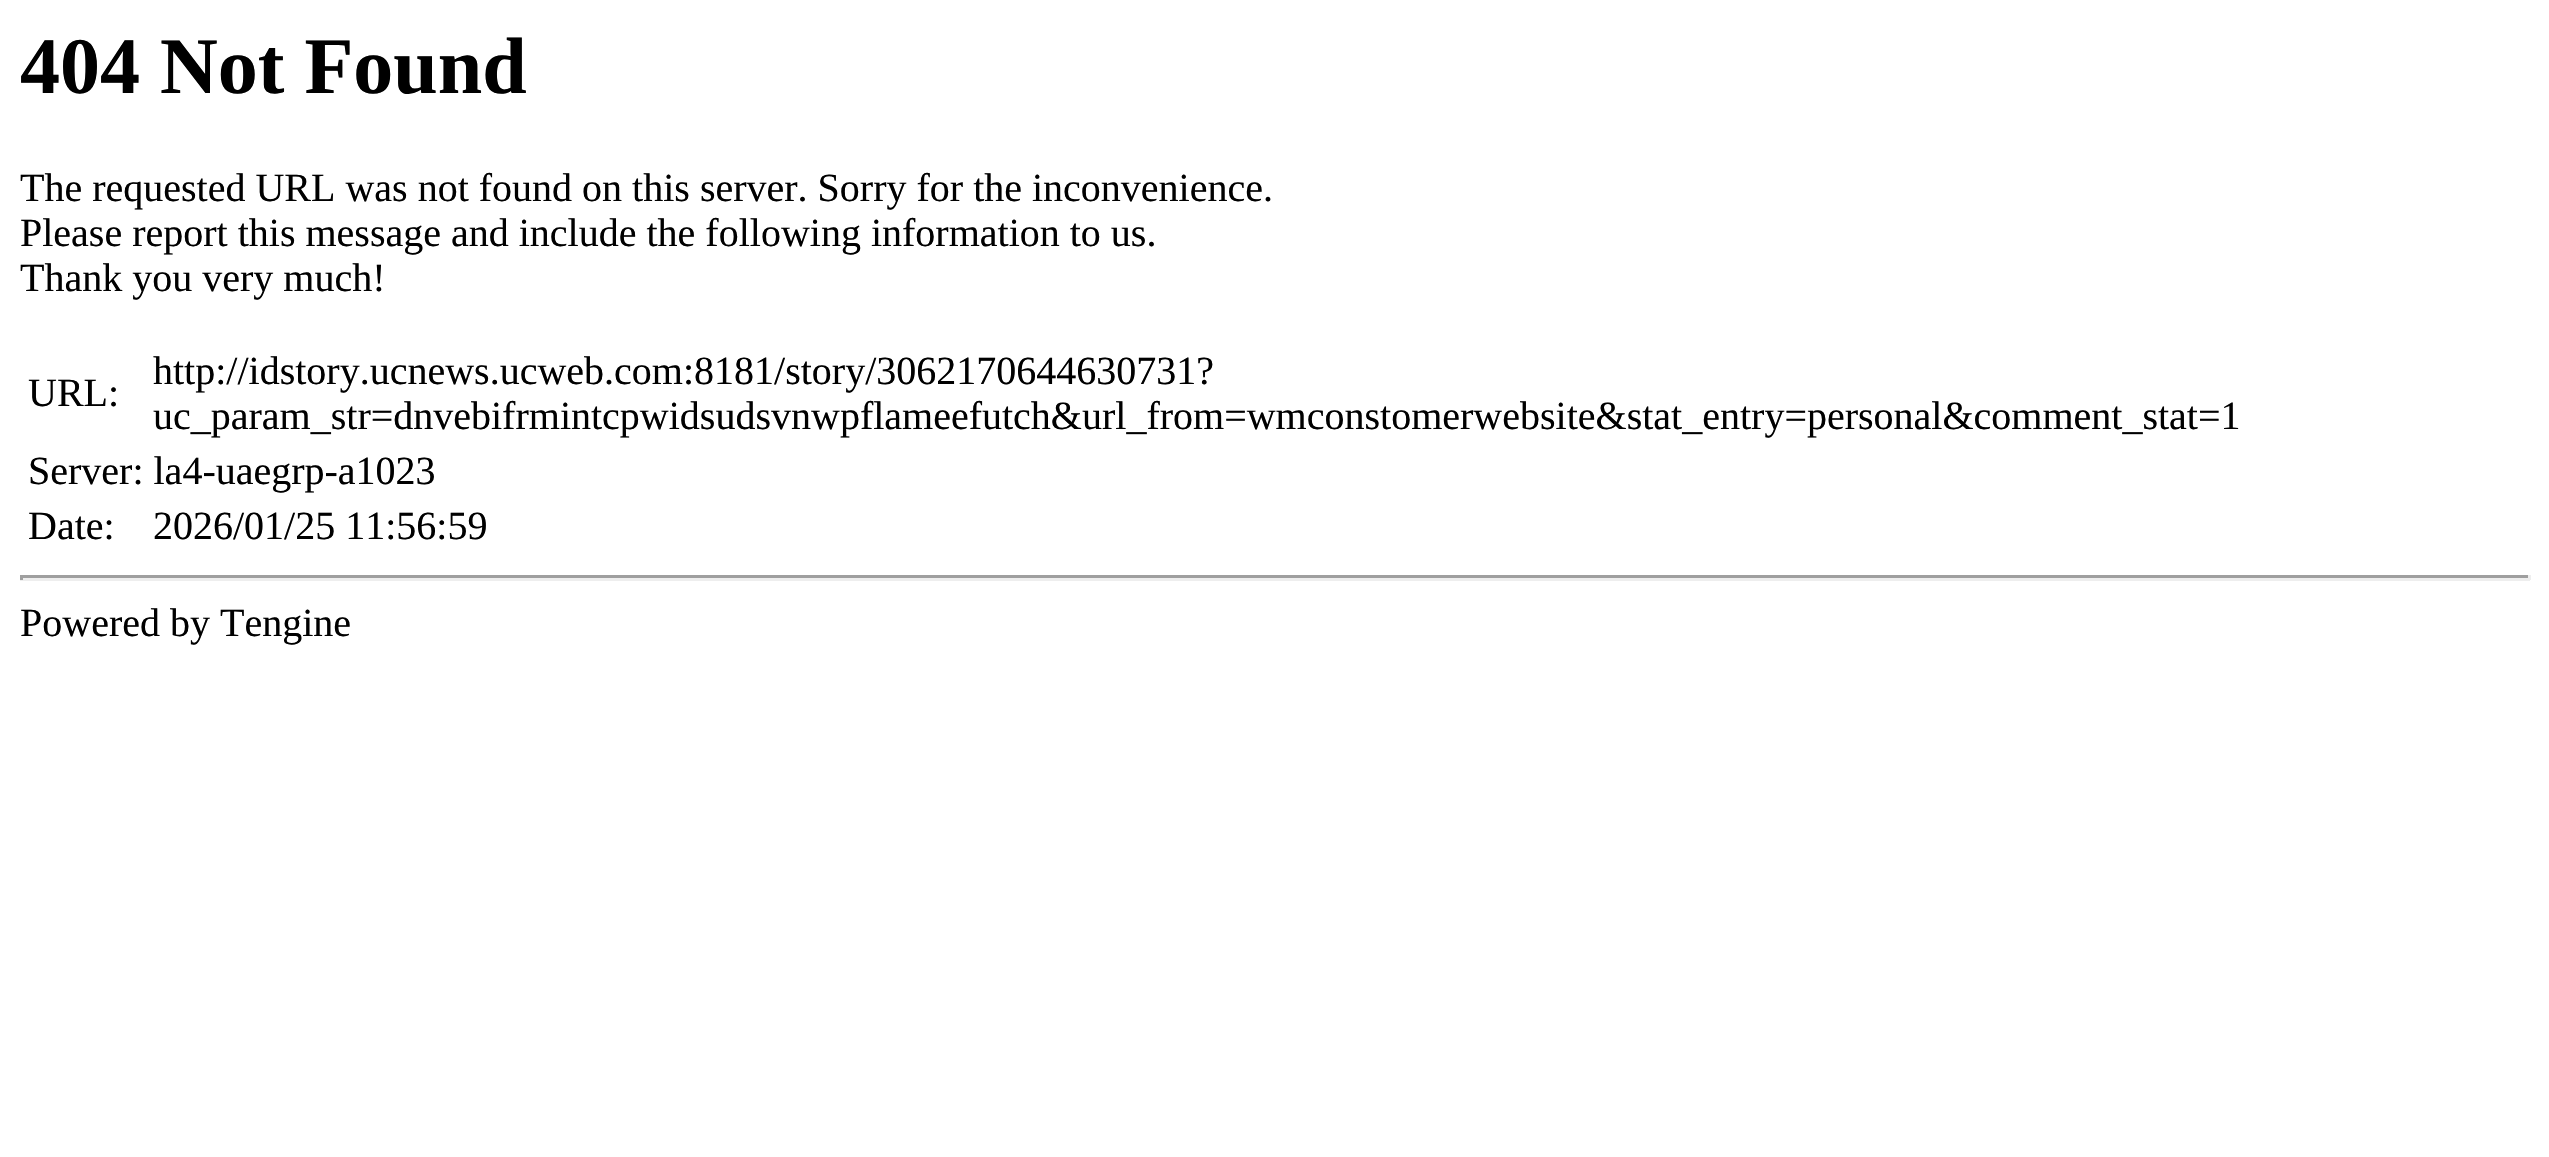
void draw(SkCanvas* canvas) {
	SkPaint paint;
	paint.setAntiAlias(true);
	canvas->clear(0xffffffff);
	SkFont f1(fontMgr->matchFamilyStyle("Liberation Serif", SkFontStyle::Bold()), 80);
	f1.setSubpixel(true);
	paint.setColor(0xff000000);
	canvas->drawString("404 Not Found", 20, 93, f1, paint);
	SkFont f2(fontMgr->matchFamilyStyle("Liberation Serif", SkFontStyle::Normal()), 40);
	f2.setSubpixel(true);
	canvas->drawString("The requested URL was not found on this server. Sorry for the inconvenience.", 20, 201, f2, paint);
	canvas->drawString("Please report this message and include the following information to us.", 20, 246, f2, paint);
	canvas->drawString("Thank you very much!", 20, 291, f2, paint);
	canvas->drawString("URL:", 28, 406, f2, paint);
	canvas->drawString("http://idstory.ucnews.ucweb.com:8181/story/3062170644630731?", 153, 384, f2, paint);
	canvas->drawString("uc_param_str=dnvebifrmintcpwidsudsvnwpflameefutch&url_from=wmconstomerwebsite&stat_entry=personal&comment_stat=1", 153, 429, f2, paint);
	canvas->drawString("Server: la4-uaegrp-a1023", 28, 484, f2, paint);
	canvas->drawString("Date:", 28, 539, f2, paint);
	canvas->drawString("2026/01/25 11:56:59", 153, 539, f2, paint);
	paint.setColor(0xff9f9f9f);
	canvas->drawRect(SkRect::MakeXYWH(20, 575, 2510, 3), paint);
	paint.setColor(0xffeeeeee);
	canvas->drawRect(SkRect::MakeXYWH(2528, 575, 3, 5), paint);
	canvas->drawRect(SkRect::MakeXYWH(20, 578, 2510, 3), paint);
	paint.setColor(0xff9f9f9f);
	canvas->drawRect(SkRect::MakeXYWH(20, 575, 3, 5), paint);
	paint.setColor(0xff000000);
	canvas->drawString("Powered by Tengine", 20, 636, f2, paint);
}
